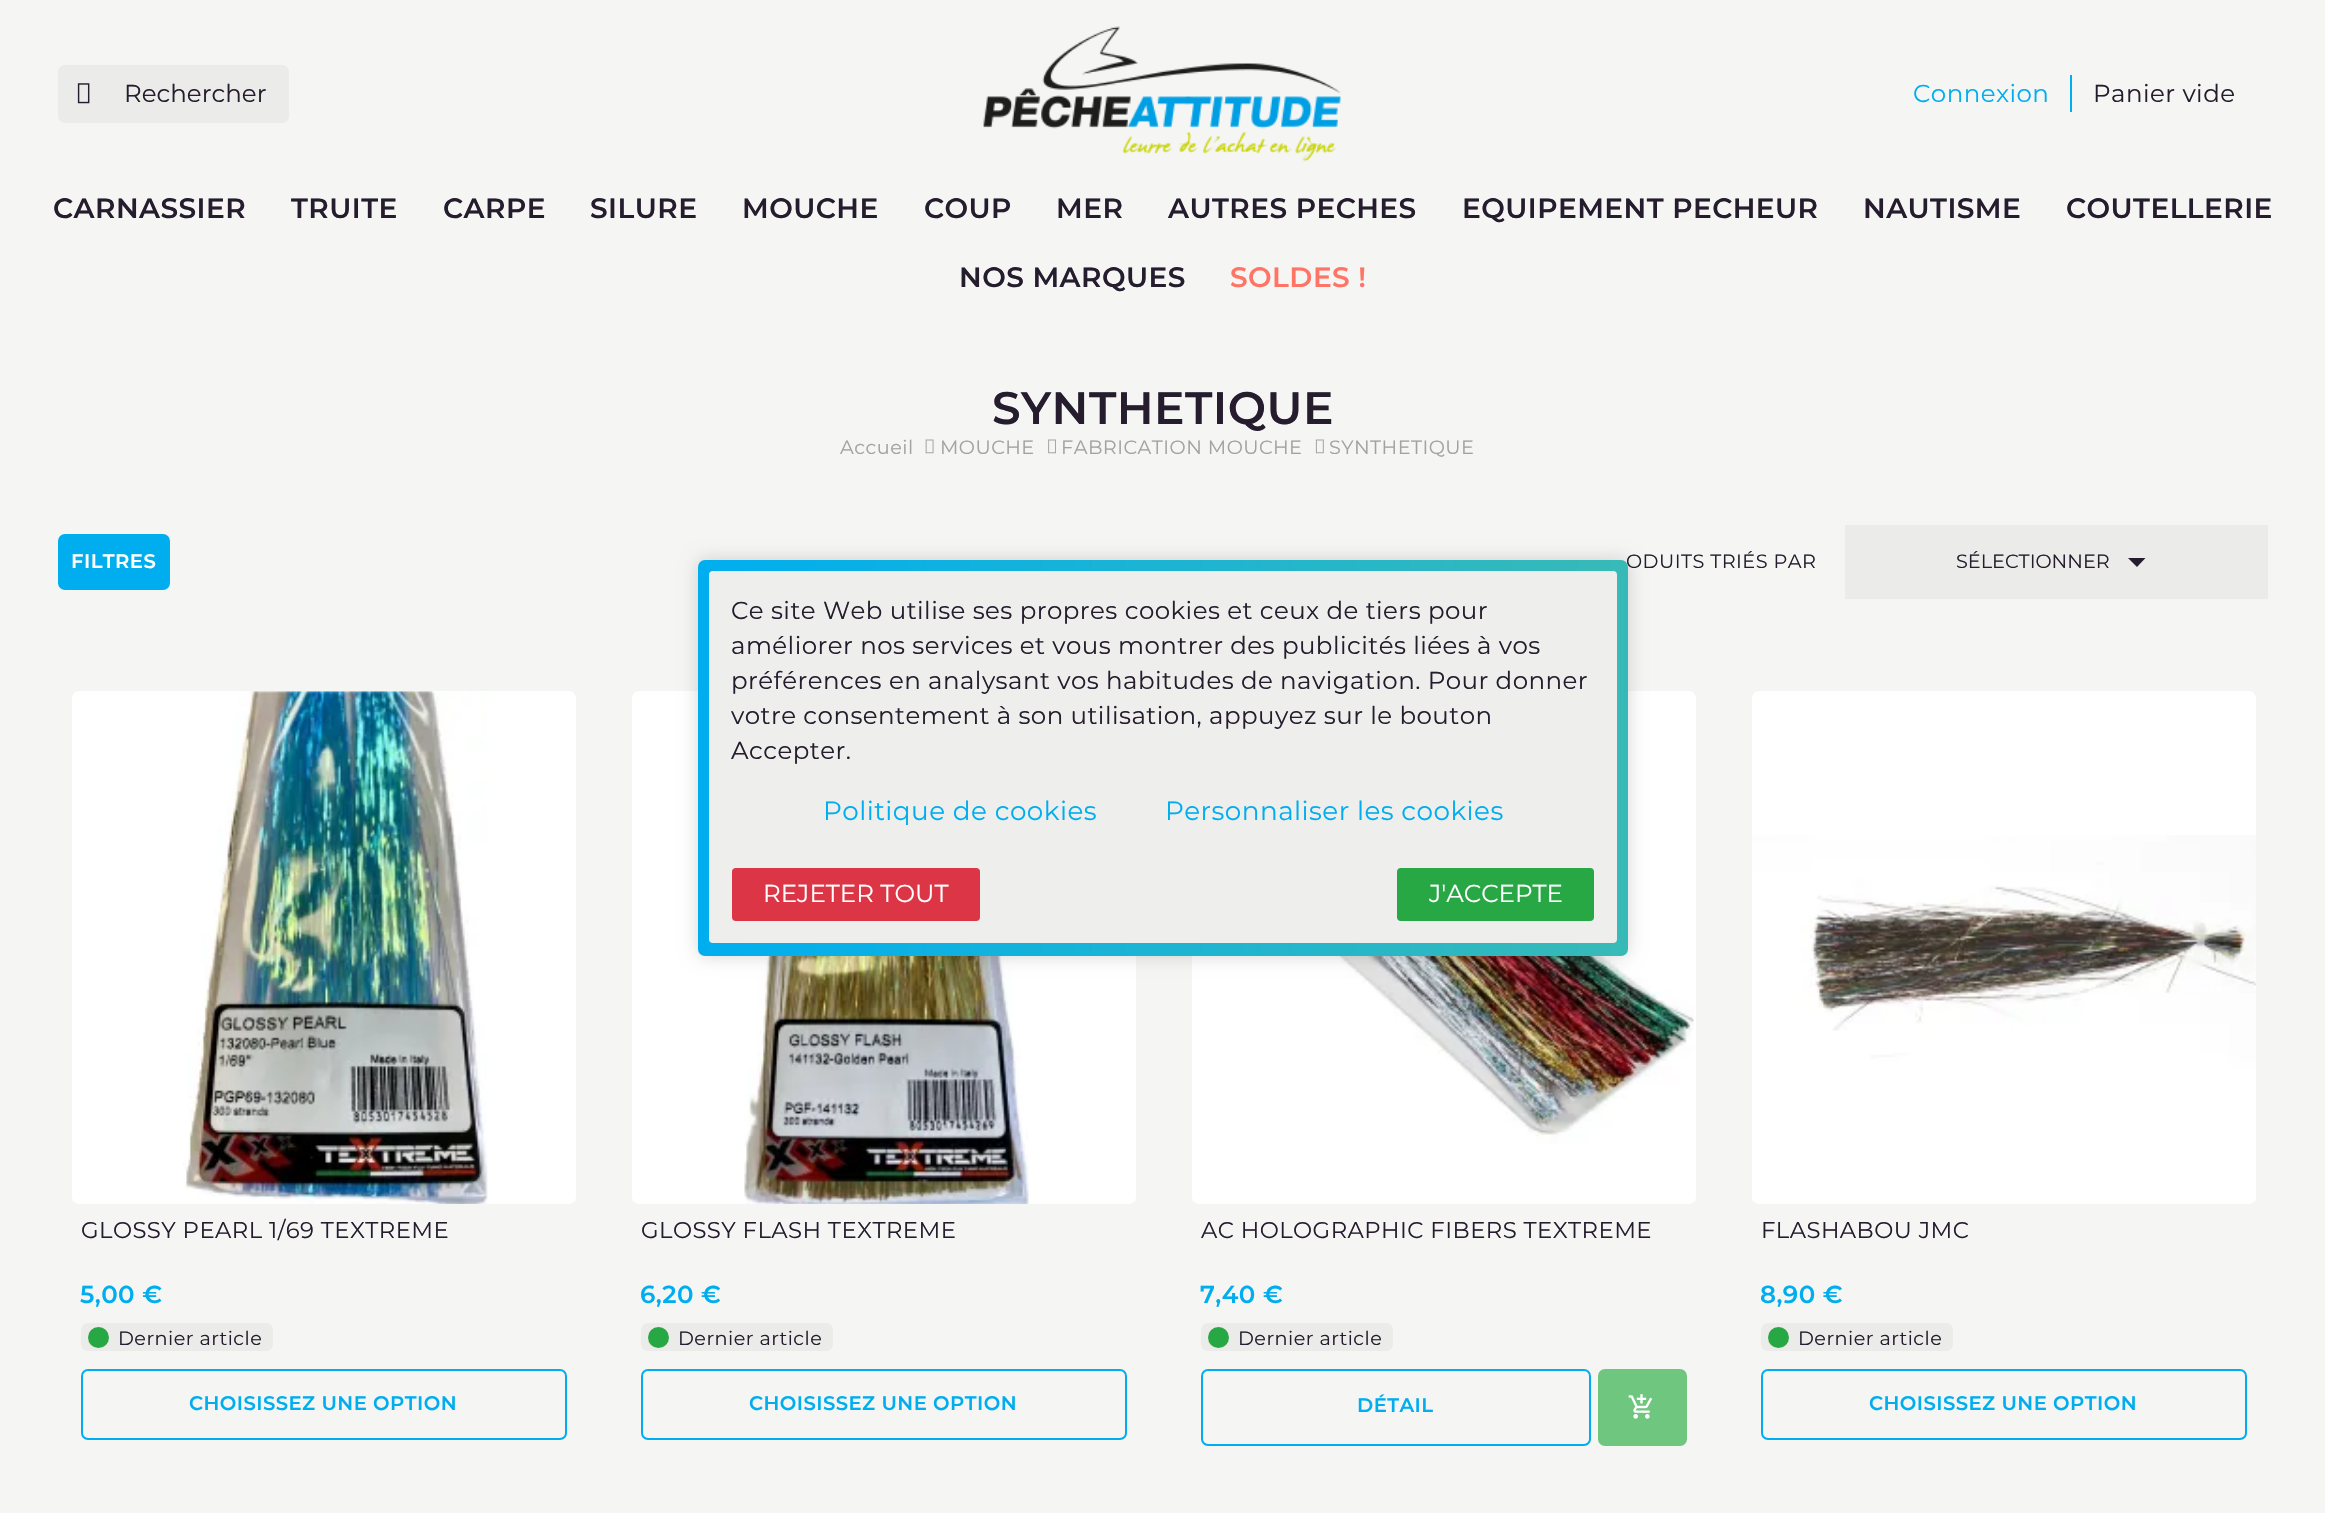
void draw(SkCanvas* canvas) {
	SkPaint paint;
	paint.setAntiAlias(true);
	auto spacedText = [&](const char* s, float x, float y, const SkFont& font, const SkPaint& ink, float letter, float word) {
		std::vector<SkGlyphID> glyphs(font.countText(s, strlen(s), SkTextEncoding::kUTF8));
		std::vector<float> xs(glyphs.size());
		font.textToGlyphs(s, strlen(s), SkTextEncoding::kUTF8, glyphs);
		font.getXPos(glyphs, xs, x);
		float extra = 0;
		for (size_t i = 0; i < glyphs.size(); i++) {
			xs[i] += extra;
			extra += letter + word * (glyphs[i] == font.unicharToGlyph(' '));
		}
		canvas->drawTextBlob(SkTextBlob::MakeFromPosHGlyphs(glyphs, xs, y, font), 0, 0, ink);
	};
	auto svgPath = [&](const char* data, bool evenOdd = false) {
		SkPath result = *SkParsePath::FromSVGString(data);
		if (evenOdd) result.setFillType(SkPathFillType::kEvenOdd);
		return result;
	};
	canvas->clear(0xfff5f5f4);
	paint.setColor(0xffebebe9);
	canvas->drawRoundRect(SkRect::MakeXYWH(58, 65, 231, 58), 7, 7, paint);
	canvas->drawImageRect(SkImages::DeferredFromEncodedData(SkData::MakeFromFileName("img1.png")), SkRect::MakeXYWH(77, 83, 13, 21), SkSamplingOptions());
	SkFont f1(fontMgr->matchFamilyStyle("Montserrat", SkFontStyle::Normal()), 24.5);
	f1.setSubpixel(true);
	paint.setColor(0xff251d2e);
	canvas->drawString("Rechercher", 124, 102, f1, paint);
	canvas->drawImageRect(SkImages::DeferredFromEncodedData(SkData::MakeFromFileName("img2.png")), SkRect::MakeXYWH(983, 26, 358, 136), SkSamplingOptions());
	paint.setColor(0xff00aeef);
	canvas->drawRect(SkRect::MakeXYWH(2070, 75, 2, 37), paint);
	spacedText("Connexion", 1913, 102, f1, paint, 0.45, 0);
	paint.setColor(0xff251d2e);
	spacedText("Panier vide", 2093, 102, f1, paint, 0.45, 0);
	SkFont f2(fontMgr->matchFamilyStyle("Montserrat", SkFontStyle(600, SkFontStyle::kNormal_Width, SkFontStyle::kUpright_Slant)), 28);
	f2.setSubpixel(true);
	spacedText("CARNASSIER", 53, 218, f2, paint, 0.45, 0);
	spacedText("TRUITE", 291, 218, f2, paint, 0.45, 0);
	spacedText("CARPE", 443, 218, f2, paint, 0.45, 0);
	spacedText("SILURE", 590, 218, f2, paint, 0.45, 0);
	spacedText("MOUCHE", 742, 218, f2, paint, 0.45, 0);
	spacedText("COUP", 924, 218, f2, paint, 0.45, 0);
	spacedText("MER", 1056, 218, f2, paint, 0.45, 0);
	spacedText("AUTRES PECHES", 1168, 218, f2, paint, 0.45, 0);
	spacedText("EQUIPEMENT PECHEUR", 1462, 218, f2, paint, 0.45, 0);
	spacedText("NAUTISME", 1863, 218, f2, paint, 0.45, 0);
	spacedText("COUTELLERIE", 2066, 218, f2, paint, 0.45, 0);
	spacedText("NOS MARQUES", 959, 287, f2, paint, 0.45, 0);
	paint.setColor(0xffff7465);
	spacedText("SOLDES !", 1230, 287, f2, paint, 0.45, 0);
	SkFont f3(fontMgr->matchFamilyStyle("Montserrat", SkFontStyle(600, SkFontStyle::kNormal_Width, SkFontStyle::kUpright_Slant)), 45.5);
	f3.setSubpixel(true);
	paint.setColor(0xff251d2e);
	spacedText("SYNTHETIQUE", 992, 424, f3, paint, 0.45, 0);
	SkFont f4(fontMgr->matchFamilyStyle("Montserrat", SkFontStyle::Normal()), 19.25);
	f4.setSubpixel(true);
	paint.setColor(0xffa2a2a2);
	spacedText("Accueil", 840, 454, f4, paint, 0.45, 0);
	canvas->drawImageRect(SkImages::DeferredFromEncodedData(SkData::MakeFromFileName("img3.png")), SkRect::MakeXYWH(925, 439, 9, 15), SkSamplingOptions());
	spacedText("MOUCHE", 940, 454, f4, paint, 0.45, 0);
	canvas->drawImageRect(SkImages::DeferredFromEncodedData(SkData::MakeFromFileName("img4.png")), SkRect::MakeXYWH(1048, 439, 8, 15), SkSamplingOptions());
	spacedText("FABRICATION MOUCHE", 1061, 454, f4, paint, 0.45, 0);
	canvas->drawImageRect(SkImages::DeferredFromEncodedData(SkData::MakeFromFileName("img5.png")), SkRect::MakeXYWH(1315, 439, 9, 15), SkSamplingOptions());
	spacedText("SYNTHETIQUE", 1329, 454, f4, paint, 0.45, 0);
	paint.setColor(0xff00aeef);
	canvas->drawRoundRect(SkRect::MakeXYWH(59, 535, 110, 54), 6, 6, paint);
	paint.setStroke(true);
	paint.setStrokeWidth(2);
	canvas->drawRoundRect(SkRect::MakeXYWH(59, 535, 110, 54), 6, 6, paint);
	SkFont f5(fontMgr->matchFamilyStyle("Montserrat", SkFontStyle(600, SkFontStyle::kNormal_Width, SkFontStyle::kUpright_Slant)), 19.6);
	f5.setSubpixel(true);
	paint.setStroke(false);
	paint.setColor(0xffffffff);
	spacedText("FILTRES", 71, 568, f5, paint, 0.45, 0);
	paint.setColor(0xff251d2e);
	spacedText("ODUITS TRIÉS PAR", 1626, 568, f4, paint, 0.45, 0);
	paint.setColor(0xffebebe9);
	canvas->drawRect(SkRect::MakeXYWH(1845, 525, 423, 74), paint);
	paint.setColor(0xff251d2e);
	canvas->drawString("SÉLECTIONNER", 1956, 568, f4, paint);
	canvas->drawPath(svgPath("M2128 558H2145.5L2137 567Z"), paint);
	paint.setColor(0xffffffff);
	canvas->drawRoundRect(SkRect::MakeXYWH(72, 691, 504, 513), 7, 7, paint);
	canvas->drawImageRect(SkImages::DeferredFromEncodedData(SkData::MakeFromFileName("img6.png")), SkRect::MakeXYWH(183, 691, 305, 513), SkSamplingOptions());
	SkFont f6(fontMgr->matchFamilyStyle("Montserrat", SkFontStyle::Normal()), 22.75);
	f6.setSubpixel(true);
	paint.setColor(0xff251d2e);
	spacedText("GLOSSY PEARL 1/69 TEXTREME", 81, 1238, f6, paint, 0.45, 0);
	SkFont f7(fontMgr->matchFamilyStyle("Montserrat", SkFontStyle(600, SkFontStyle::kNormal_Width, SkFontStyle::kUpright_Slant)), 24.5);
	f7.setSubpixel(true);
	paint.setColor(0xff00aeef);
	spacedText("5,00 €", 80, 1303, f7, paint, 0.45, 0);
	paint.setColor(0xffebebe9);
	canvas->drawRoundRect(SkRect::MakeXYWH(81, 1323, 192, 28), 7, 7, paint);
	paint.setColor(0xff28a745);
	canvas->drawCircle(98.5, 1337.5, 10.5, paint);
	paint.setColor(0xff251d2e);
	spacedText("Dernier article", 118, 1345, f4, paint, 0.45, 0);
	paint.setStroke(true);
	paint.setColor(0xff00aeef);
	canvas->drawRoundRect(SkRect::MakeXYWH(82, 1370, 484, 69), 6, 6, paint);
	paint.setStroke(false);
	spacedText("CHOISISSEZ UNE OPTION", 189, 1410, f5, paint, 0.45, 0);
	paint.setColor(0xffffffff);
	canvas->drawRoundRect(SkRect::MakeXYWH(632, 691, 504, 513), 7, 7, paint);
	canvas->drawImageRect(SkImages::DeferredFromEncodedData(SkData::MakeFromFileName("img7.png")), SkRect::MakeXYWH(744, 956, 285, 248), SkSamplingOptions());
	paint.setColor(0xff251d2e);
	spacedText("GLOSSY FLASH TEXTREME", 641, 1238, f6, paint, 0.45, 0);
	paint.setColor(0xff00aeef);
	spacedText("6,20 €", 640, 1303, f7, paint, 0.45, 0);
	paint.setColor(0xffebebe9);
	canvas->drawRoundRect(SkRect::MakeXYWH(641, 1323, 192, 28), 7, 7, paint);
	paint.setColor(0xff28a745);
	canvas->drawCircle(658.5, 1337.5, 10.5, paint);
	paint.setColor(0xff251d2e);
	spacedText("Dernier article", 678, 1345, f4, paint, 0.45, 0);
	paint.setStroke(true);
	paint.setColor(0xff00aeef);
	canvas->drawRoundRect(SkRect::MakeXYWH(642, 1370, 484, 69), 6, 6, paint);
	paint.setStroke(false);
	spacedText("CHOISISSEZ UNE OPTION", 749, 1410, f5, paint, 0.45, 0);
	paint.setColor(0xffffffff);
	canvas->drawRoundRect(SkRect::MakeXYWH(1192, 691, 504, 513), 7, 7, paint);
	canvas->drawImageRect(SkImages::DeferredFromEncodedData(SkData::MakeFromFileName("img8.png")), SkRect::MakeXYWH(1195, 766, 499, 378), SkSamplingOptions());
	paint.setColor(0xff251d2e);
	spacedText("AC HOLOGRAPHIC FIBERS TEXTREME", 1201, 1238, f6, paint, 0.45, 0);
	paint.setColor(0xff00aeef);
	spacedText("7,40 €", 1200, 1303, f7, paint, 0.45, 0);
	paint.setColor(0xffebebe9);
	canvas->drawRoundRect(SkRect::MakeXYWH(1201, 1323, 192, 28), 7, 7, paint);
	paint.setColor(0xff28a745);
	canvas->drawCircle(1218.5, 1337.5, 10.5, paint);
	paint.setColor(0xff251d2e);
	spacedText("Dernier article", 1238, 1345, f4, paint, 0.45, 0);
	paint.setStroke(true);
	paint.setColor(0xff00aeef);
	canvas->drawRoundRect(SkRect::MakeXYWH(1202, 1370, 388, 75), 6, 6, paint);
	paint.setStroke(false);
	spacedText("DÉTAIL", 1357, 1412, f5, paint, 0.45, 0);
	paint.setColor(0xff6fc67f);
	canvas->drawRoundRect(SkRect::MakeXYWH(1599, 1370, 87, 75), 6, 6, paint);
	paint.setStroke(true);
	canvas->drawRoundRect(SkRect::MakeXYWH(1599, 1370, 87, 75), 6, 6, paint);
	canvas->drawImageRect(SkImages::DeferredFromEncodedData(SkData::MakeFromFileName("img9.png")), SkRect::MakeXYWH(1628, 1394, 25, 25), SkSamplingOptions());
	paint.setStroke(false);
	paint.setColor(0xffffffff);
	canvas->drawRoundRect(SkRect::MakeXYWH(1752, 691, 504, 513), 7, 7, paint);
	canvas->drawImageRect(SkImages::DeferredFromEncodedData(SkData::MakeFromFileName("img10.png")), SkRect::MakeXYWH(1752, 835, 504, 367), SkSamplingOptions());
	paint.setColor(0xff251d2e);
	spacedText("FLASHABOU JMC", 1761, 1238, f6, paint, 0.45, 0);
	paint.setColor(0xff00aeef);
	spacedText("8,90 €", 1760, 1303, f7, paint, 0.45, 0);
	paint.setColor(0xffebebe9);
	canvas->drawRoundRect(SkRect::MakeXYWH(1761, 1323, 192, 28), 7, 7, paint);
	paint.setColor(0xff28a745);
	canvas->drawCircle(1778.5, 1337.5, 10.5, paint);
	paint.setColor(0xff251d2e);
	spacedText("Dernier article", 1798, 1345, f4, paint, 0.45, 0);
	paint.setStroke(true);
	paint.setColor(0xff00aeef);
	canvas->drawRoundRect(SkRect::MakeXYWH(1762, 1370, 484, 69), 6, 6, paint);
	paint.setStroke(false);
	spacedText("CHOISISSEZ UNE OPTION", 1869, 1410, f5, paint, 0.45, 0);
	paint.setColor(0x29000000);
	paint.setMaskFilter(SkMaskFilter::MakeBlur(kNormal_SkBlurStyle, 9));
	canvas->drawRoundRect(SkRect::MakeXYWH(698, 560, 930, 396), 7, 7, paint);
	paint.setMaskFilter(nullptr);
	{
		const SkColor colors[] = {0xff00aeef, 0xff6fc67f};
		const float stops[] = {0, 1};
		const SkPoint ends[] = {{699, 758}, {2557, 758}};
		paint.setShader(SkGradientShader::MakeLinear(ends, colors, stops, 2, SkTileMode::kClamp));
		paint.setAlpha(255);
	}
	canvas->drawRoundRect(SkRect::MakeXYWH(698, 560, 930, 396), 7, 7, paint);
	paint.setShader(nullptr);
	paint.setColor(0xffeeeeec);
	canvas->drawRoundRect(SkRect::MakeXYWH(709, 571, 908, 372), 4, 4, paint);
	paint.setColor(0xff251d2e);
	spacedText("Ce site Web utilise ses propres cookies et ceux de tiers pour", 731, 619, f1, paint, 0.45, 0);
	spacedText("améliorer nos services et vous montrer des publicités liées à vos", 731, 654, f1, paint, 0.45, 0);
	spacedText("préférences en analysant vos habitudes de navigation. Pour donner", 731, 689, f1, paint, 0.45, 0);
	spacedText("votre consentement à son utilisation, appuyez sur le bouton", 731, 724, f1, paint, 0.45, 0);
	spacedText("Accepter.", 731, 759, f1, paint, 0.45, 0);
	SkFont f8(fontMgr->matchFamilyStyle("Montserrat", SkFontStyle::Normal()), 26.25);
	f8.setSubpixel(true);
	paint.setColor(0xff00aeef);
	spacedText("Politique de cookies", 823, 820, f8, paint, 0.45, 0);
	spacedText("Personnaliser les cookies", 1165, 820, f8, paint, 0.45, 0);
	paint.setColor(0xffdc3545);
	canvas->drawRoundRect(SkRect::MakeXYWH(732, 868, 248, 53), 4, 4, paint);
	paint.setColor(0xffffffff);
	canvas->drawString("REJETER TOUT", 763, 902, f1, paint);
	paint.setColor(0xff28a745);
	canvas->drawRoundRect(SkRect::MakeXYWH(1397, 868, 197, 53), 4, 4, paint);
	paint.setColor(0xffffffff);
	canvas->drawString("J'ACCEPTE", 1429, 902, f1, paint);
}
